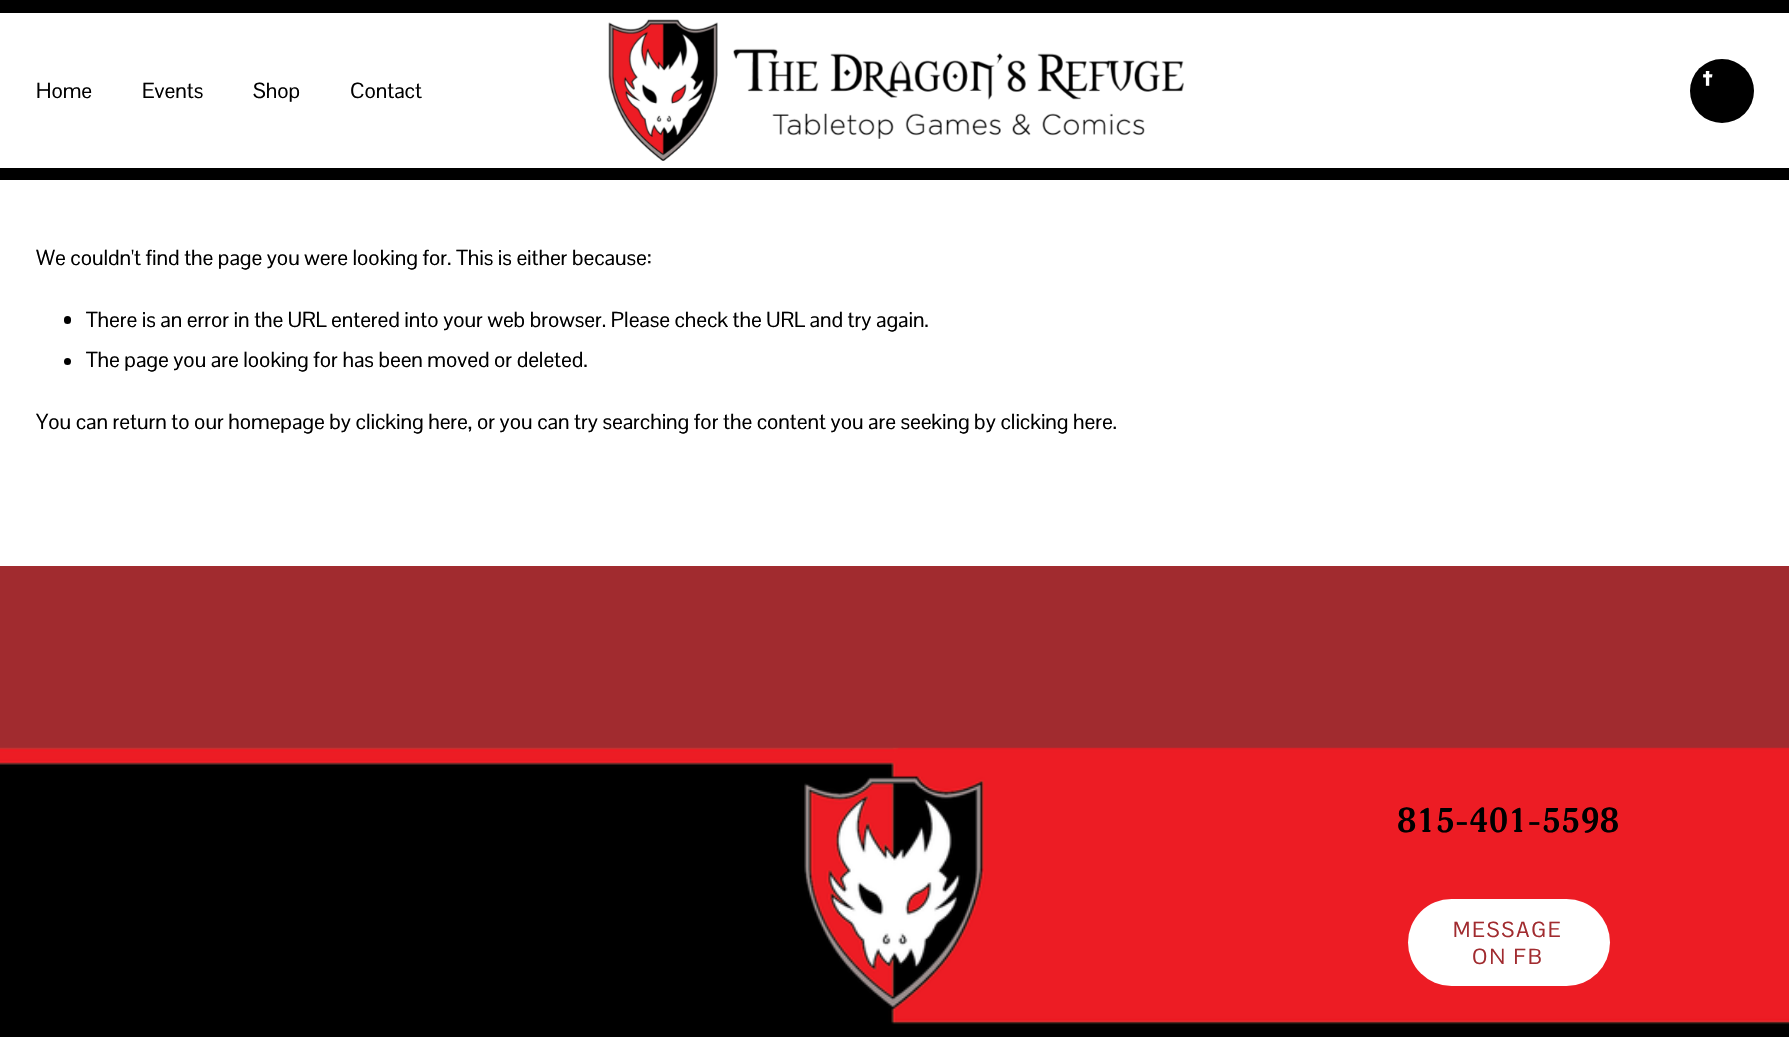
void draw(SkCanvas* canvas) {
	SkPaint paint;
	paint.setAntiAlias(true);
	auto spacedText = [&](const char* s, float x, float y, const SkFont& font, const SkPaint& ink, float letter, float word) {
		std::vector<SkGlyphID> glyphs(font.countText(s, strlen(s), SkTextEncoding::kUTF8));
		std::vector<float> xs(glyphs.size());
		font.textToGlyphs(s, strlen(s), SkTextEncoding::kUTF8, glyphs);
		font.getXPos(glyphs, xs, x);
		float extra = 0;
		for (size_t i = 0; i < glyphs.size(); i++) {
			xs[i] += extra;
			extra += letter + word * (glyphs[i] == font.unicharToGlyph(' '));
		}
		canvas->drawTextBlob(SkTextBlob::MakeFromPosHGlyphs(glyphs, xs, y, font), 0, 0, ink);
	};
	canvas->clear(0xffffffff);
	paint.setColor(0xff000000);
	canvas->drawRect(SkRect::MakeXYWH(0, 0, 1789, 13), paint);
	canvas->drawRect(SkRect::MakeXYWH(0, 168, 1789, 12), paint);
	SkFont f1(fontMgr->matchFamilyStyle("Pontano Sans", SkFontStyle::Normal()), 21.25);
	f1.setSubpixel(true);
	canvas->drawString("Home", 36, 98, f1, paint);
	canvas->drawString("Events", 142, 98, f1, paint);
	canvas->drawString("Shop", 253, 98, f1, paint);
	canvas->drawString("Contact", 350, 98, f1, paint);
	canvas->drawImageRect(SkImages::DeferredFromEncodedData(SkData::MakeFromFileName("img1.png")), SkRect::MakeXYWH(608, 19, 576, 142), SkSamplingOptions());
	canvas->drawCircle(1722, 91, 32, paint);
	canvas->drawImageRect(SkImages::DeferredFromEncodedData(SkData::MakeFromFileName("img2.png")), SkRect::MakeXYWH(1703, 71, 10, 15), SkSamplingOptions());
	canvas->drawString("We couldn't find the page you were looking for. This is either because:", 36, 265, f1, paint);
	canvas->drawRoundRect(SkRect::MakeXYWH(64, 316, 7, 8), 3.5, 3.5, paint);
	canvas->drawString("There is an error in the URL entered into your web browser. Please check the URL and try again.", 86, 327, f1, paint);
	canvas->drawCircle(67.5, 361.5, 3.5, paint);
	canvas->drawString("The page you are looking for has been moved or deleted.", 86, 367, f1, paint);
	canvas->drawString("You can return to our homepage by clicking here, or you can try searching for the content you are seeking by clicking here.", 36, 429, f1, paint);
	paint.setColor(0xffa12b2f);
	canvas->drawRect(SkRect::MakeXYWH(0, 566, 1789, 187), paint);
	canvas->drawImageRect(SkImages::DeferredFromEncodedData(SkData::MakeFromFileName("img3.png")), SkRect::MakeXYWH(0, 747, 1789, 290), SkSamplingOptions());
	SkFont f2(fontMgr->matchFamilyStyle("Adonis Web", SkFontStyle::Bold()), 34);
	f2.setSubpixel(true);
	paint.setColor(0xff000000);
	canvas->drawString("815-401-5598", 1397, 832, f2, paint);
	paint.setColor(0xffffffff);
	canvas->drawRoundRect(SkRect::MakeXYWH(1408, 899, 202, 87), 43.5, 43.5, paint);
	paint.setColor(0xffa12b2f);
	spacedText("MESSAGE", 1453, 937, f1, paint, 2, 0);
	spacedText("ON FB", 1472, 964, f1, paint, 2, 0);
}
